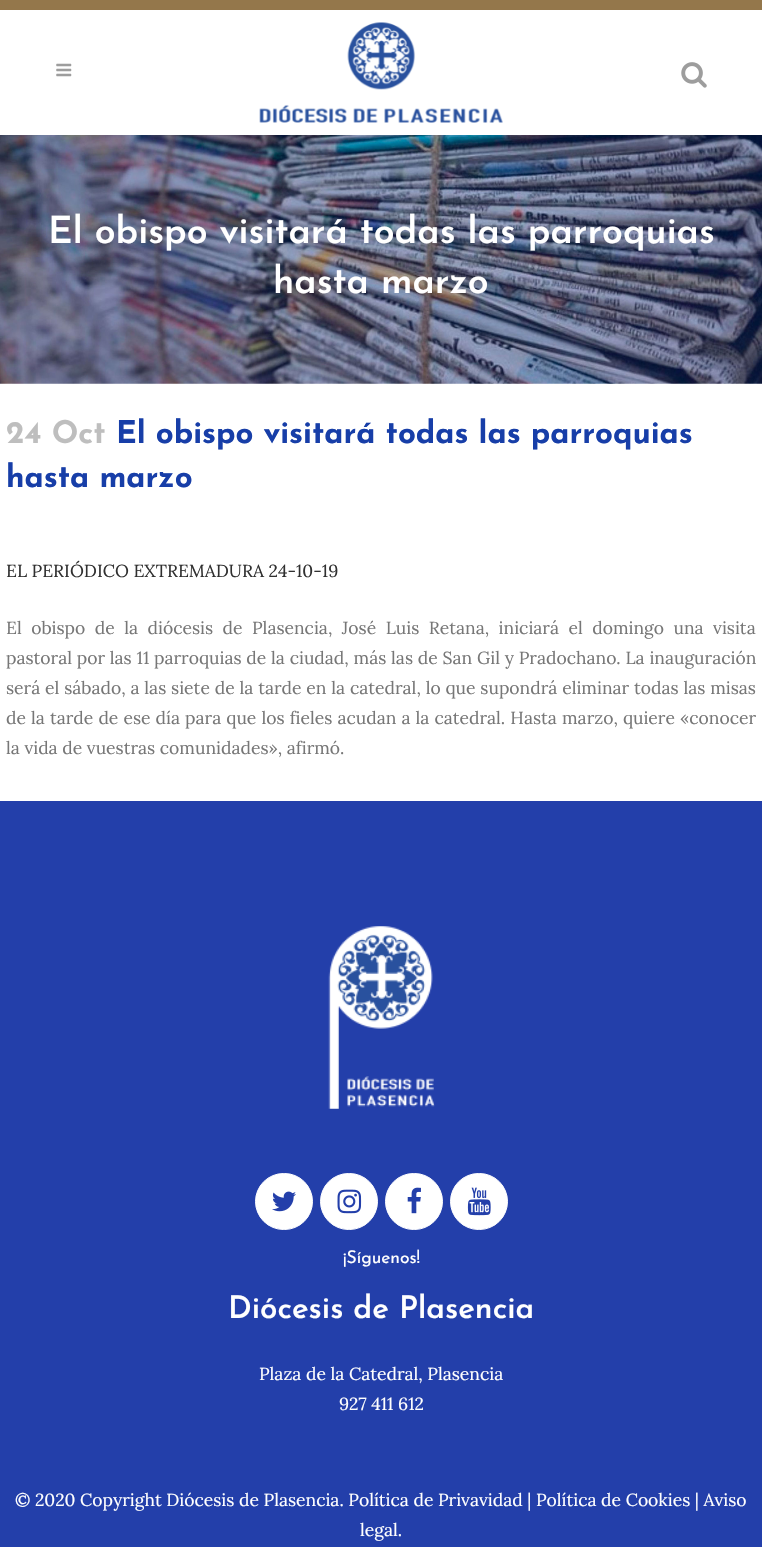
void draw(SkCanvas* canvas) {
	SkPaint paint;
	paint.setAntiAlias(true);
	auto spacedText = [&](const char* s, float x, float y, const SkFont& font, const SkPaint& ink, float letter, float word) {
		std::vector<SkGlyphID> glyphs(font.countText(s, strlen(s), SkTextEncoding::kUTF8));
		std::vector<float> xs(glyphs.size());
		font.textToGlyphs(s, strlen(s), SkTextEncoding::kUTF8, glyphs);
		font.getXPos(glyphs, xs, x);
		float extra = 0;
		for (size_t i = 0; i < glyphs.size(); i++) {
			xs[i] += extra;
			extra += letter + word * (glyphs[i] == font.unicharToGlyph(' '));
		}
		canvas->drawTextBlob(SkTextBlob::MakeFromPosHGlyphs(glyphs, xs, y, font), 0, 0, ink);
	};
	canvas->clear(0xffffffff);
	paint.setColor(0xff94774b);
	canvas->drawRect(SkRect::MakeXYWH(0, 0, 762, 10), paint);
	canvas->drawImageRect(SkImages::DeferredFromEncodedData(SkData::MakeFromFileName("img1.png")), SkRect::MakeXYWH(56, 63, 16, 14), SkSamplingOptions());
	canvas->drawImageRect(SkImages::DeferredFromEncodedData(SkData::MakeFromFileName("img2.png")), SkRect::MakeXYWH(259, 22, 244, 101), SkSamplingOptions());
	canvas->drawImageRect(SkImages::DeferredFromEncodedData(SkData::MakeFromFileName("img3.png")), SkRect::MakeXYWH(681, 62, 26, 26), SkSamplingOptions());
	canvas->drawImageRect(SkImages::DeferredFromEncodedData(SkData::MakeFromFileName("img4.png")), SkRect::MakeXYWH(0, 135, 762, 249), SkSamplingOptions());
	SkFont f1(fontMgr->matchFamilyStyle("Josefin Sans", SkFontStyle(600, SkFontStyle::kNormal_Width, SkFontStyle::kUpright_Slant)), 37.5);
	f1.setSubpixel(true);
	paint.setColor(0xffffffff);
	canvas->drawString("El obispo visitará todas las parroquias", 48, 243, f1, paint);
	canvas->drawString("hasta marzo", 273, 293, f1, paint);
	SkFont f2(fontMgr->matchFamilyStyle("Josefin Sans", SkFontStyle::Bold()), 31.25);
	f2.setSubpixel(true);
	paint.setColor(0xffbebebe);
	canvas->drawString("24 Oct", 6, 443, f2, paint);
	paint.setColor(0xff173ea8);
	canvas->drawString("El obispo visitará todas las parroquias", 116, 443, f2, paint);
	canvas->drawString("hasta marzo", 6, 487, f2, paint);
	SkFont f3(fontMgr->matchFamilyStyle("Lora", SkFontStyle::Normal()), 17.5);
	f3.setSubpixel(true);
	paint.setColor(0xff303030);
	canvas->drawString("EL PERIÓDICO EXTREMADURA 24-10-19", 6, 577, f3, paint);
	paint.setColor(0xff777777);
	spacedText("El obispo de la diócesis de Plasencia, José Luis Retana, iniciará el domingo una visita", 6, 634, f3, paint, 0, 4.9);
	spacedText("pastoral por las 11 parroquias de la ciudad, más las de San Gil y Pradochano. La inauguración", 6, 664, f3, paint, 0, 0.2);
	spacedText("será el sábado, a las siete de la tarde en la catedral, lo que supondrá eliminar todas las misas", 6, 694, f3, paint, 0, 0.25);
	spacedText("de la tarde de ese día para que los fieles acudan a la catedral. Hasta marzo, quiere «conocer", 6, 724, f3, paint, 0, 0.5);
	canvas->drawString("la vida de vuestras comunidades», afirmó.", 6, 754, f3, paint);
	paint.setColor(0xff233faa);
	canvas->drawRect(SkRect::MakeXYWH(0, 801, 762, 746), paint);
	canvas->drawImageRect(SkImages::DeferredFromEncodedData(SkData::MakeFromFileName("img5.png")), SkRect::MakeXYWH(328, 926, 107, 183), SkSamplingOptions());
	paint.setColor(0xffffffff);
	canvas->drawRoundRect(SkRect::MakeXYWH(255.5, 1173.5, 57, 56), 28, 28, paint);
	paint.setStroke(true);
	paint.setStrokeWidth(1);
	canvas->drawRoundRect(SkRect::MakeXYWH(255.5, 1173.5, 57, 56), 28, 28, paint);
	canvas->drawImageRect(SkImages::DeferredFromEncodedData(SkData::MakeFromFileName("img6.png")), SkRect::MakeXYWH(272, 1191, 24, 21), SkSamplingOptions());
	paint.setStroke(false);
	canvas->drawRoundRect(SkRect::MakeXYWH(320.5, 1173.5, 57, 56), 28, 28, paint);
	paint.setStroke(true);
	canvas->drawRoundRect(SkRect::MakeXYWH(320.5, 1173.5, 57, 56), 28, 28, paint);
	canvas->drawImageRect(SkImages::DeferredFromEncodedData(SkData::MakeFromFileName("img7.png")), SkRect::MakeXYWH(337, 1189, 25, 25), SkSamplingOptions());
	paint.setStroke(false);
	canvas->drawRoundRect(SkRect::MakeXYWH(385.5, 1173.5, 57, 56), 28, 28, paint);
	paint.setStroke(true);
	canvas->drawRoundRect(SkRect::MakeXYWH(385.5, 1173.5, 57, 56), 28, 28, paint);
	canvas->drawImageRect(SkImages::DeferredFromEncodedData(SkData::MakeFromFileName("img8.png")), SkRect::MakeXYWH(407, 1187, 14, 27), SkSamplingOptions());
	paint.setStroke(false);
	canvas->drawRoundRect(SkRect::MakeXYWH(450.5, 1173.5, 57, 56), 28, 28, paint);
	paint.setStroke(true);
	canvas->drawRoundRect(SkRect::MakeXYWH(450.5, 1173.5, 57, 56), 28, 28, paint);
	canvas->drawImageRect(SkImages::DeferredFromEncodedData(SkData::MakeFromFileName("img9.png")), SkRect::MakeXYWH(467, 1187, 24, 29), SkSamplingOptions());
	SkFont f4(fontMgr->matchFamilyStyle("Josefin Sans", SkFontStyle::Normal()), 17.5);
	f4.setSubpixel(true);
	paint.setStroke(false);
	canvas->drawString("¡Síguenos!", 343, 1263, f4, paint);
	SkFont f5(fontMgr->matchFamilyStyle("Josefin Sans", SkFontStyle(600, SkFontStyle::kNormal_Width, SkFontStyle::kUpright_Slant)), 31.25);
	f5.setSubpixel(true);
	canvas->drawString("Diócesis de Plasencia", 228, 1318, f5, paint);
	canvas->drawString("Plaza de la Catedral, Plasencia", 259, 1380, f3, paint);
	canvas->drawString("927 411 612", 339, 1410, f3, paint);
	canvas->drawString("© 2020 Copyright Diócesis de Plasencia. Política de Privavidad | Política de Cookies | Aviso", 15, 1506, f3, paint);
	canvas->drawString("legal.", 360, 1536, f3, paint);
}
